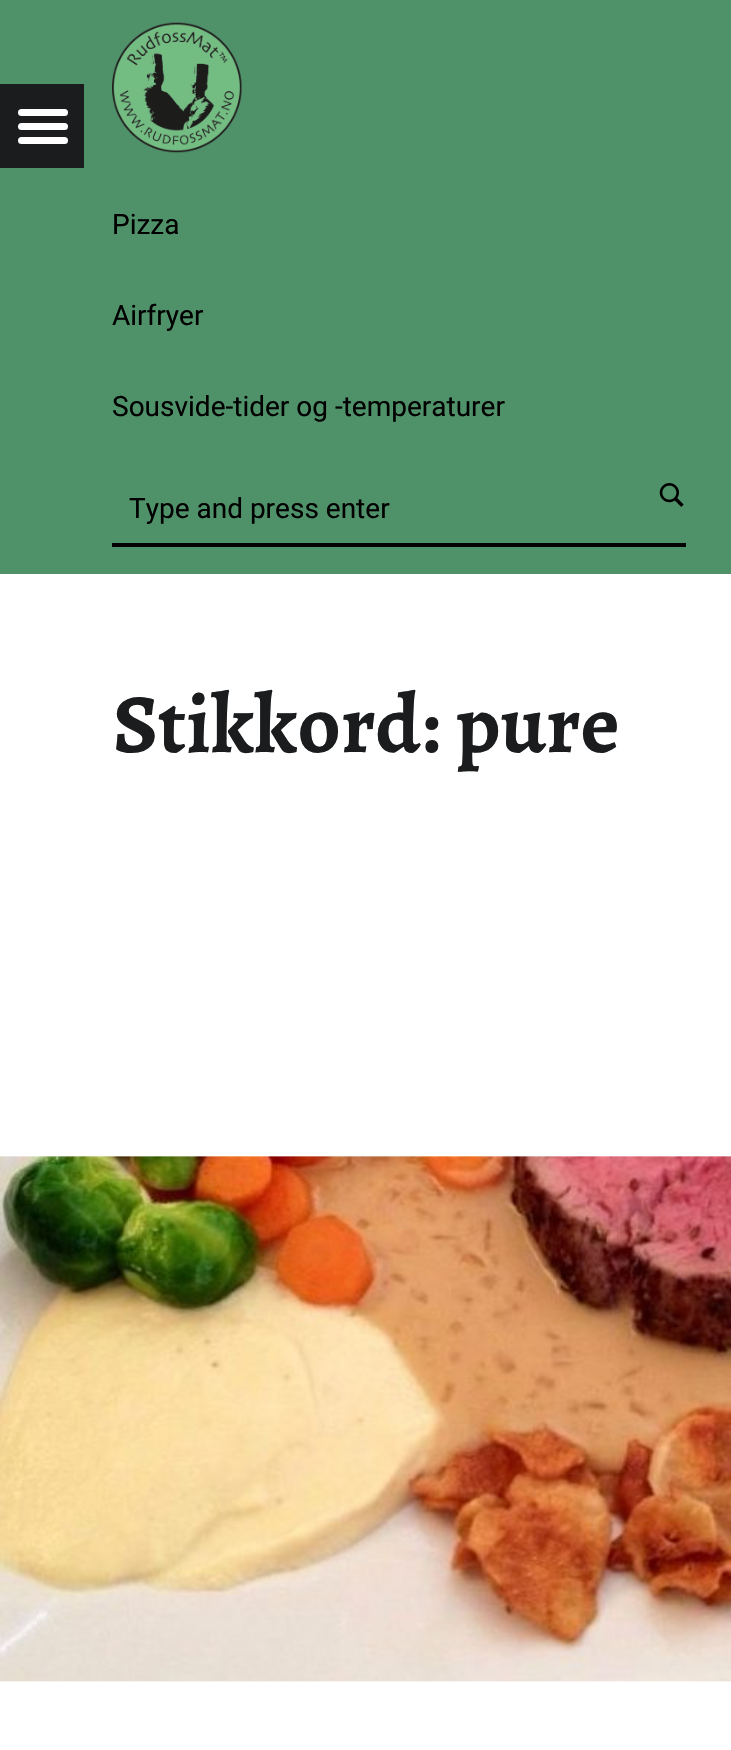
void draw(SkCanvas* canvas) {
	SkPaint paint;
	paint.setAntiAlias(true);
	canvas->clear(0xffffffff);
	paint.setColor(0xff4f9169);
	canvas->drawRect(SkRect::MakeXYWH(0, 0, 731, 574), paint);
	paint.setColor(0xff1a1c1e);
	canvas->drawRect(SkRect::MakeXYWH(0, 84, 84, 84), paint);
	paint.setColor(0xffffffff);
	canvas->drawRoundRect(SkRect::MakeXYWH(18, 109, 50, 7), 3.5, 3.5, paint);
	canvas->drawRoundRect(SkRect::MakeXYWH(18, 123, 50, 7), 3.5, 3.5, paint);
	canvas->drawRoundRect(SkRect::MakeXYWH(18, 137, 50, 7), 3.5, 3.5, paint);
	canvas->drawImageRect(SkImages::DeferredFromEncodedData(SkData::MakeFromFileName("img1.png")), SkRect::MakeXYWH(112, 22, 130, 131), SkSamplingOptions());
	SkFont f1(fontMgr->matchFamilyStyle("Roboto", SkFontStyle::Normal()), 28);
	f1.setSubpixel(true);
	paint.setColor(0xff000000);
	canvas->drawString("Pizza", 112, 234, f1, paint);
	canvas->drawString("Airfryer", 112, 325, f1, paint);
	canvas->drawString("Sousvide-tider og -temperaturer", 112, 416, f1, paint);
	canvas->drawRect(SkRect::MakeXYWH(112, 543, 574, 4), paint);
	canvas->drawString("Type and press enter", 129, 518, f1, paint);
	canvas->drawImageRect(SkImages::DeferredFromEncodedData(SkData::MakeFromFileName("img2.png")), SkRect::MakeXYWH(659, 483, 25, 24), SkSamplingOptions());
	SkFont f2(fontMgr->matchFamilyStyle("Alegreya", SkFontStyle::Bold()), 84);
	f2.setSubpixel(true);
	paint.setColor(0xff1a1c1e);
	canvas->drawString("Stikkord: pure", 113, 752, f2, paint);
	canvas->drawImageRect(SkImages::DeferredFromEncodedData(SkData::MakeFromFileName("img3.png")), SkRect::MakeXYWH(0, 1156, 731, 526), SkSamplingOptions());
}
